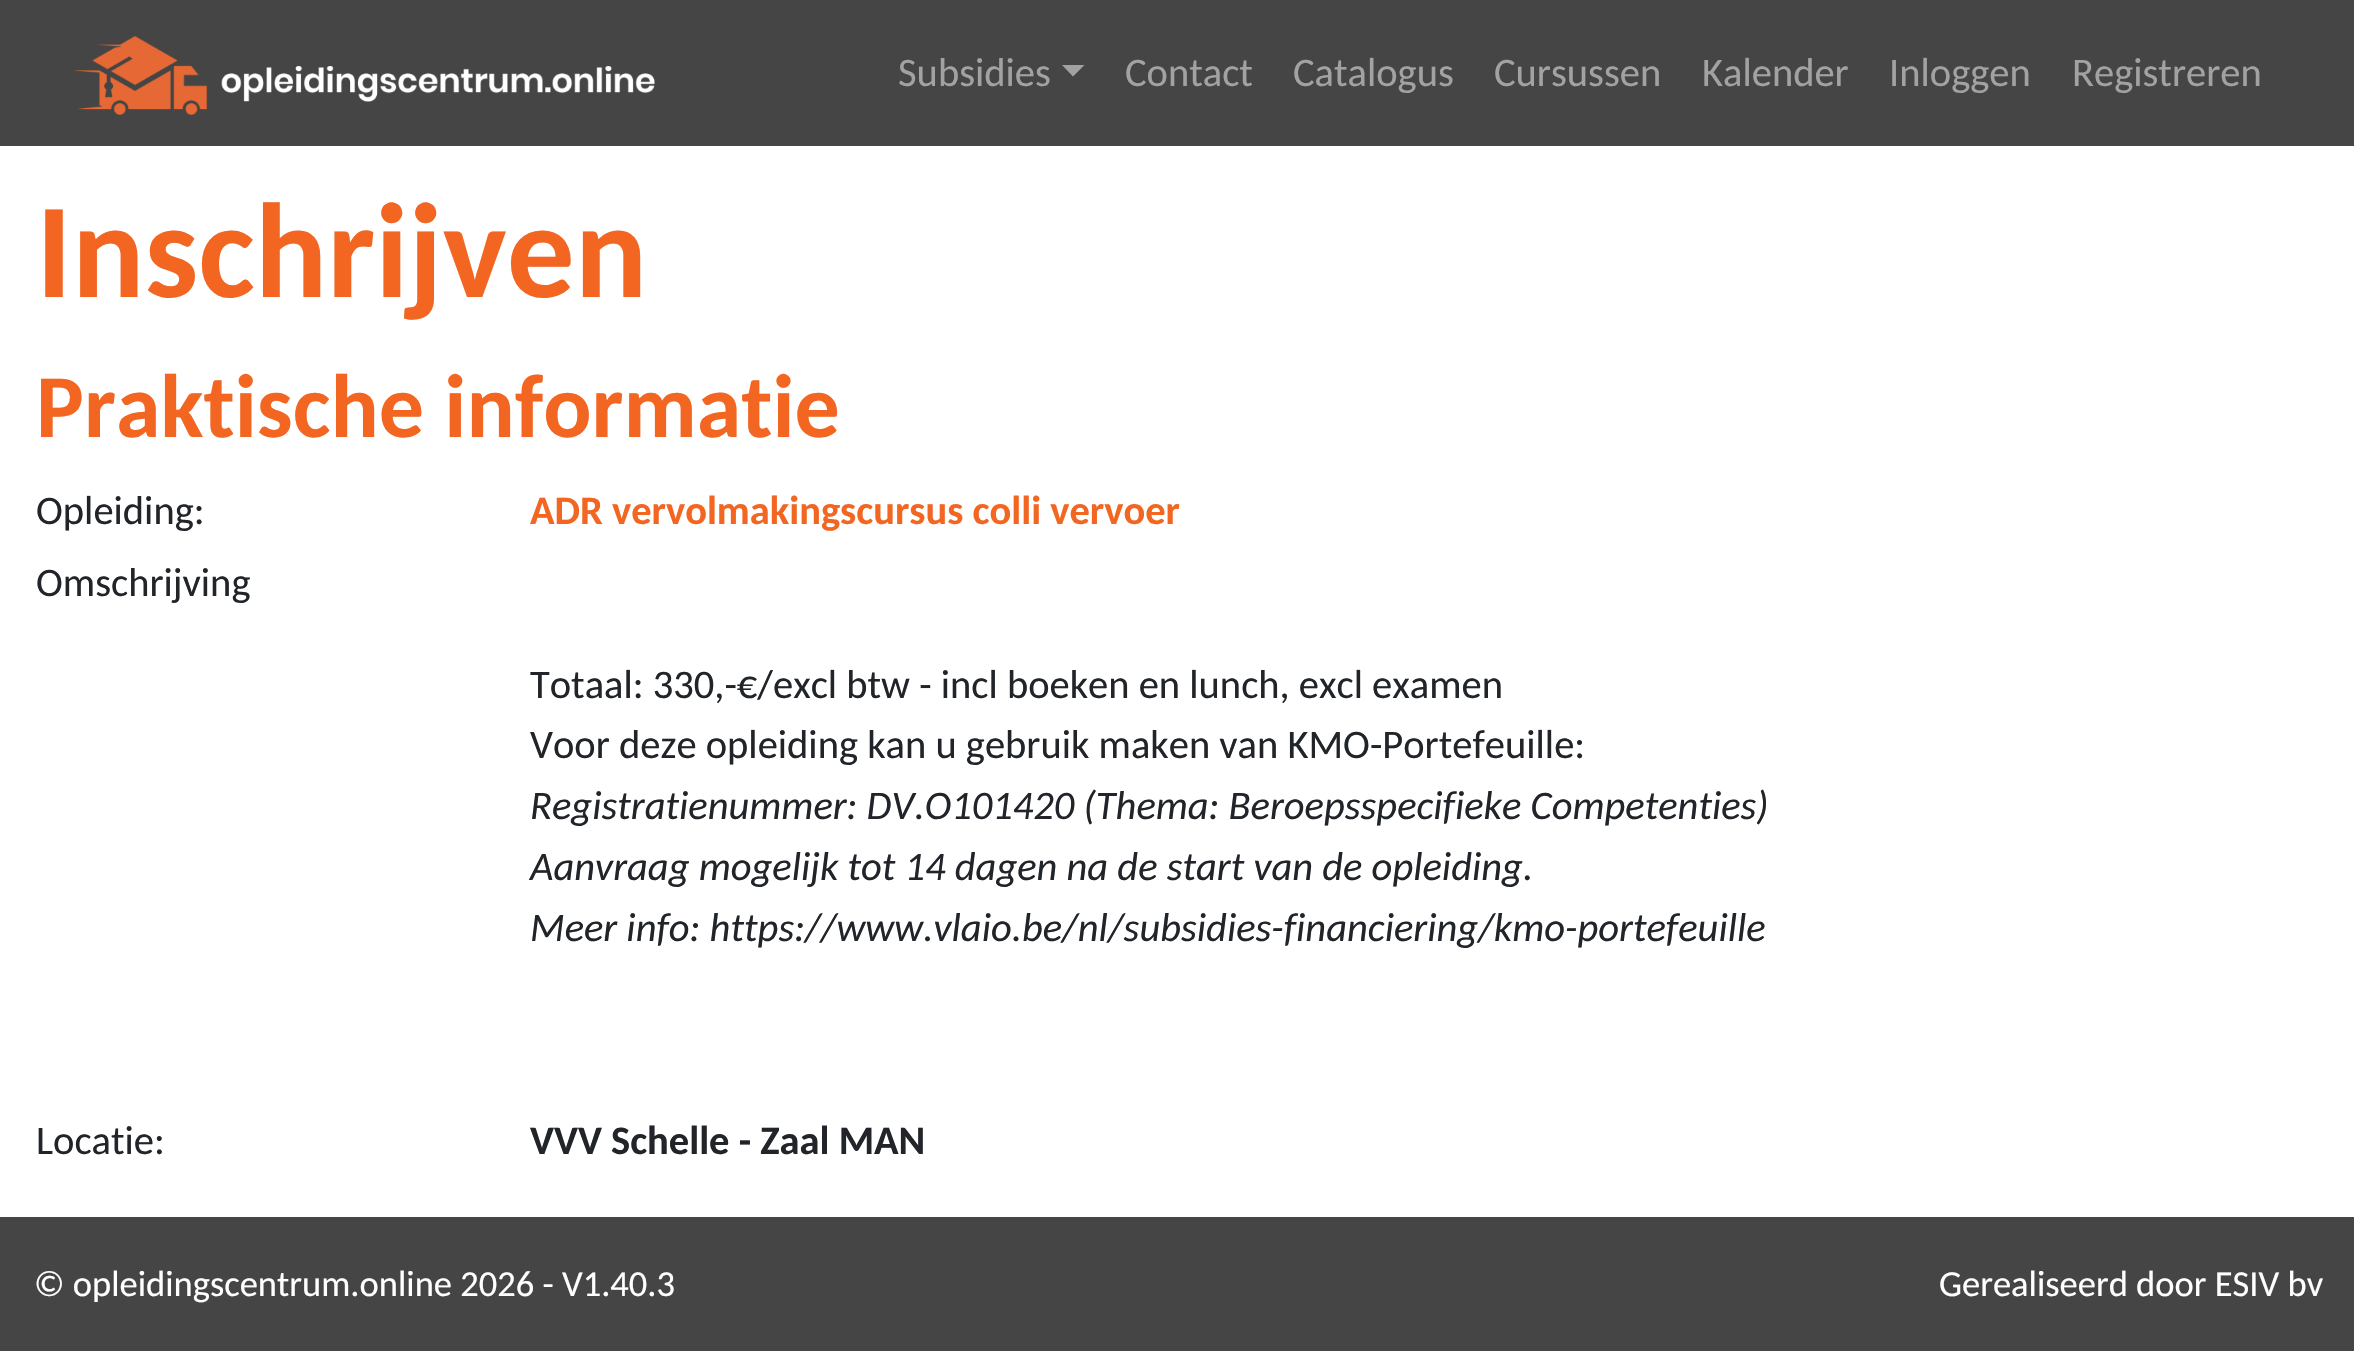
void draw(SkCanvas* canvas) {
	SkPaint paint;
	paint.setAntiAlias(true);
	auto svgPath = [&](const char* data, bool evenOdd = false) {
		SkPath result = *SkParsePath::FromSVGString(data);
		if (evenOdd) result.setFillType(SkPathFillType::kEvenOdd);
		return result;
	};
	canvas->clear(0xffffffff);
	paint.setColor(0xff454545);
	canvas->drawRect(SkRect::MakeXYWH(0, 0, 2354, 146), paint);
	canvas->drawImageRect(SkImages::DeferredFromEncodedData(SkData::MakeFromFileName("img1.png")), SkRect::MakeXYWH(74, 36, 581, 79), SkSamplingOptions());
	SkFont f1(fontMgr->matchFamilyStyle("Carlito", SkFontStyle::Normal()), 40.5);
	f1.setSubpixel(true);
	paint.setColor(0xffa2a2a2);
	canvas->drawString("Subsidies", 898, 86, f1, paint);
	canvas->drawPath(svgPath("M1062 65H1084.5L1073 76.5Z"), paint);
	canvas->drawString("Contact", 1125, 86, f1, paint);
	canvas->drawString("Catalogus", 1293, 86, f1, paint);
	canvas->drawString("Cursussen", 1494, 86, f1, paint);
	canvas->drawString("Kalender", 1702, 86, f1, paint);
	canvas->drawString("Inloggen", 1889, 86, f1, paint);
	canvas->drawString("Registreren", 2072, 86, f1, paint);
	SkFont f2(fontMgr->matchFamilyStyle("Carlito", SkFontStyle::Bold()), 135);
	f2.setSubpixel(true);
	paint.setColor(0xfff26622);
	canvas->drawString("Inschrijven", 36, 297, f2, paint);
	SkFont f3(fontMgr->matchFamilyStyle("Carlito", SkFontStyle::Bold()), 90);
	f3.setSubpixel(true);
	canvas->drawString("Praktische informatie", 36, 437, f3, paint);
	paint.setColor(0xff212529);
	canvas->drawString("Opleiding:", 36, 524, f1, paint);
	SkFont f4(fontMgr->matchFamilyStyle("Carlito", SkFontStyle::Bold()), 40.5);
	f4.setSubpixel(true);
	paint.setColor(0xfff26622);
	canvas->drawString("ADR vervolmakingscursus colli vervoer", 530, 524, f4, paint);
	paint.setColor(0xff212529);
	canvas->drawString("Omschrijving", 36, 596, f1, paint);
	canvas->drawString("Totaal: 330,-€/excl btw - incl boeken en lunch, excl examen", 530, 698, f1, paint);
	canvas->drawString("Voor deze opleiding kan u gebruik maken van KMO-Portefeuille:", 530, 758, f1, paint);
	SkFont f5(fontMgr->matchFamilyStyle("Carlito", SkFontStyle::Italic()), 40.5);
	f5.setSubpixel(true);
	canvas->drawString("Registratienummer: DV.O101420 (Thema: Beroepsspecifieke Competenties)", 530, 819, f5, paint);
	canvas->drawString("Aanvraag mogelijk tot 14 dagen na de start van de opleiding.", 530, 880, f5, paint);
	canvas->drawString("Meer info: https://www.vlaio.be/nl/subsidies-financiering/kmo-portefeuille", 530, 941, f5, paint);
	canvas->drawString("Locatie:", 36, 1154, f1, paint);
	canvas->drawString("VVV Schelle - Zaal MAN", 530, 1154, f4, paint);
	paint.setColor(0xff454545);
	canvas->drawRect(SkRect::MakeXYWH(0, 1217, 2354, 134), paint);
	SkFont f6(fontMgr->matchFamilyStyle("Carlito", SkFontStyle::Normal()), 36.5);
	f6.setSubpixel(true);
	paint.setColor(0xffffffff);
	canvas->drawString("© opleidingscentrum.online 2026 - V1.40.3", 34, 1296, f6, paint);
	canvas->drawString("Gerealiseerd door ESIV bv", 1939, 1296, f6, paint);
}
